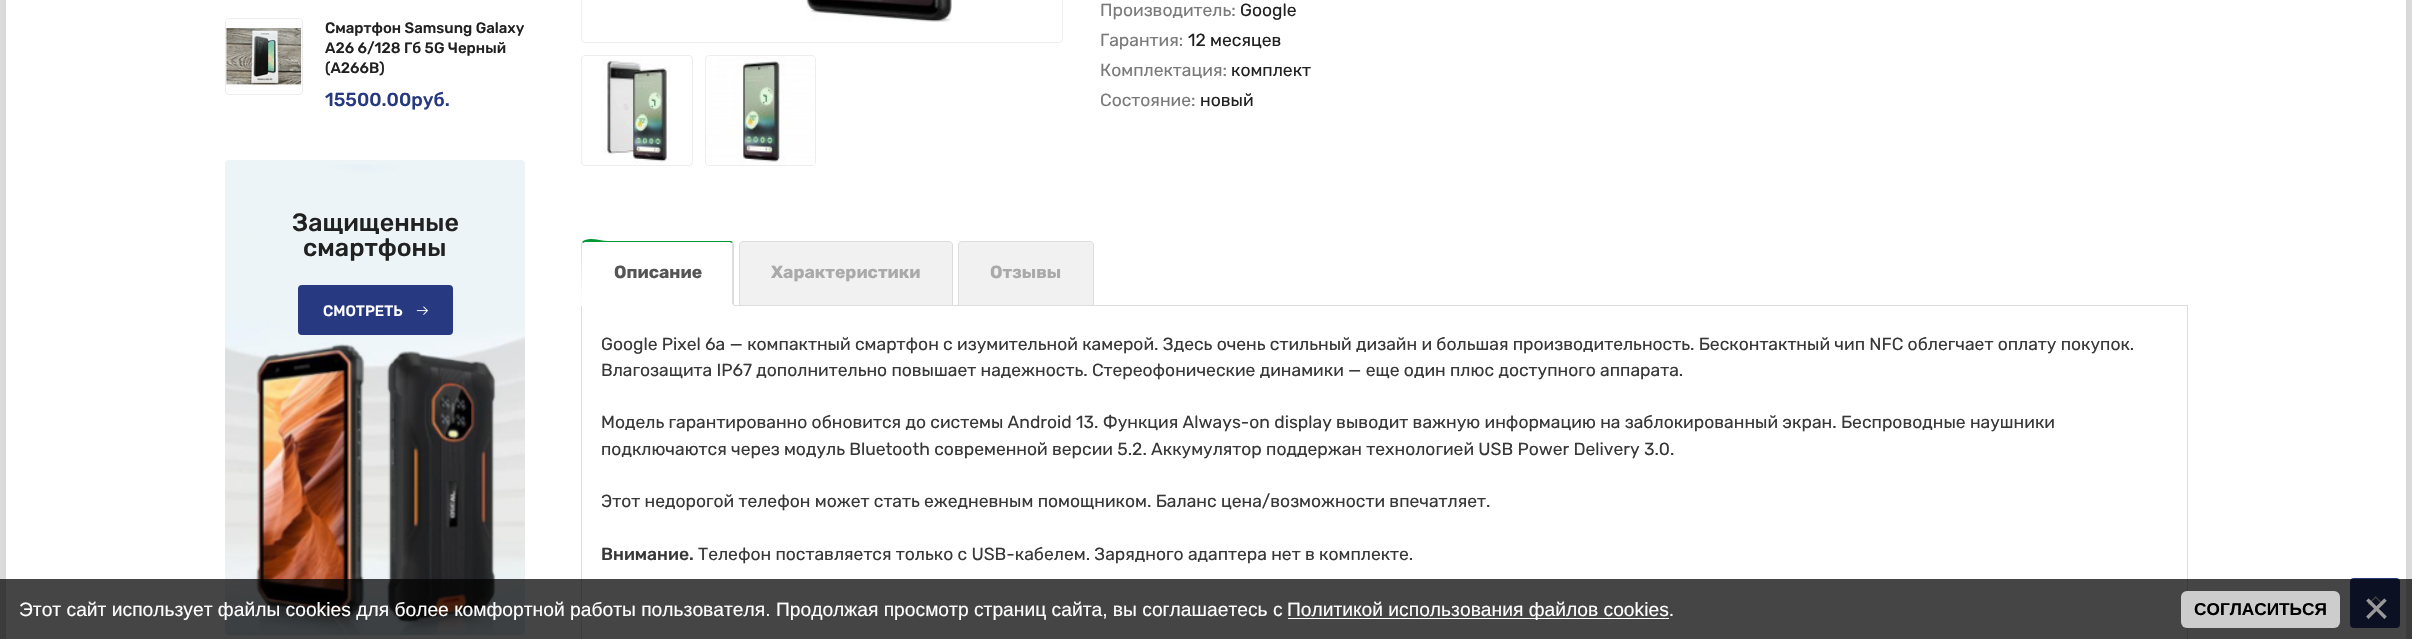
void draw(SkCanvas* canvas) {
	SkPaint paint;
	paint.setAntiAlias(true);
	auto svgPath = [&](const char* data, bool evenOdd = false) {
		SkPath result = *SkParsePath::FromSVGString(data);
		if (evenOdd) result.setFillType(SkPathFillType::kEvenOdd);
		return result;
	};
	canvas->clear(0xffffffff);
	paint.setColor(0x4d000000);
	paint.setMaskFilter(SkMaskFilter::MakeBlur(kNormal_SkBlurStyle, 44));
	canvas->drawRect(SkRect::MakeXYWH(6, -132, 2400, 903), paint);
	paint.setMaskFilter(nullptr);
	paint.setColor(0xffffffff);
	canvas->drawRect(SkRect::MakeXYWH(6, 0, 2400, 639), paint);
	paint.setStroke(true);
	paint.setStrokeWidth(1);
	paint.setColor(0xffededed);
	canvas->drawRoundRect(SkRect::MakeXYWH(225.5, 18.5, 77, 76), 3.5, 3.5, paint);
	canvas->drawImageRect(SkImages::DeferredFromEncodedData(SkData::MakeFromFileName("img1.png")), SkRect::MakeXYWH(226, 19, 76, 68), SkSamplingOptions());
	SkFont f1(fontMgr->matchFamilyStyle("Rubik", SkFontStyle(500, SkFontStyle::kNormal_Width, SkFontStyle::kUpright_Slant)), 15);
	f1.setSubpixel(true);
	paint.setStroke(false);
	paint.setColor(0xff212121);
	canvas->drawString("Смартфон Samsung Galaxy", 325, 33, f1, paint);
	canvas->drawString("A26 6/128 Гб 5G Черный", 325, 53, f1, paint);
	canvas->drawString("(A266B)", 325, 73, f1, paint);
	SkFont f2(fontMgr->matchFamilyStyle("Rubik", SkFontStyle(500, SkFontStyle::kNormal_Width, SkFontStyle::kUpright_Slant)), 18.75);
	f2.setSubpixel(true);
	paint.setColor(0xff273981);
	canvas->drawString("15500.00руб.", 325, 106, f2, paint);
	canvas->drawImageRect(SkImages::DeferredFromEncodedData(SkData::MakeFromFileName("img2.png")), SkRect::MakeXYWH(225, 160, 300, 475), SkSamplingOptions());
	SkFont f3(fontMgr->matchFamilyStyle("Rubik", SkFontStyle(500, SkFontStyle::kNormal_Width, SkFontStyle::kUpright_Slant)), 25);
	f3.setSubpixel(true);
	paint.setColor(0xff212121);
	canvas->drawString("Защищенные", 292, 231, f3, paint);
	canvas->drawString("смартфоны", 303, 256, f3, paint);
	paint.setColor(0xff273981);
	canvas->drawRoundRect(SkRect::MakeXYWH(298, 285, 155, 50), 4, 4, paint);
	paint.setColor(0xffffffff);
	canvas->drawString("СМОТРЕТЬ", 323, 316, f1, paint);
	canvas->drawImageRect(SkImages::DeferredFromEncodedData(SkData::MakeFromFileName("img3.png")), SkRect::MakeXYWH(416, 306, 12, 9), SkSamplingOptions());
	paint.setStroke(true);
	paint.setColor(0xffededed);
	canvas->drawRoundRect(SkRect::MakeXYWH(581.5, -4.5, 481, 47), 3.5, 3.5, paint);
	canvas->drawImageRect(SkImages::DeferredFromEncodedData(SkData::MakeFromFileName("img4.png")), SkRect::MakeXYWH(806, 0, 146, 22), SkSamplingOptions());
	canvas->drawRoundRect(SkRect::MakeXYWH(581.5, 55.5, 111, 110), 3.5, 3.5, paint);
	canvas->drawImageRect(SkImages::DeferredFromEncodedData(SkData::MakeFromFileName("img5.png")), SkRect::MakeXYWH(602, 59, 69, 106), SkSamplingOptions());
	canvas->drawRoundRect(SkRect::MakeXYWH(705.5, 55.5, 110, 110), 3.5, 3.5, paint);
	canvas->drawImageRect(SkImages::DeferredFromEncodedData(SkData::MakeFromFileName("img6.png")), SkRect::MakeXYWH(707, 57, 108, 108), SkSamplingOptions());
	SkFont f4(fontMgr->matchFamilyStyle("Rubik", SkFontStyle::Normal()), 17.5);
	f4.setSubpixel(true);
	paint.setStroke(false);
	paint.setColor(0xff7a7a7a);
	canvas->drawString("Производитель:", 1100, 16, f4, paint);
	paint.setColor(0xff212121);
	canvas->drawString("Google", 1240, 16, f4, paint);
	paint.setColor(0xff7a7a7a);
	canvas->drawString("Гарантия:", 1100, 46, f4, paint);
	paint.setColor(0xff212121);
	canvas->drawString("12 месяцев", 1188, 46, f4, paint);
	paint.setColor(0xff7a7a7a);
	canvas->drawString("Комплектация:", 1100, 76, f4, paint);
	paint.setColor(0xff212121);
	canvas->drawString("комплект", 1231, 76, f4, paint);
	paint.setColor(0xff7a7a7a);
	canvas->drawString("Состояние:", 1100, 106, f4, paint);
	paint.setColor(0xff212121);
	canvas->drawString("новый", 1200, 106, f4, paint);
	paint.setStroke(true);
	paint.setColor(0xffdddddd);
	canvas->drawRect(SkRect::MakeXYWH(581.5, 305.5, 1606, 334), paint);
	paint.setStroke(false);
	paint.setColor(0xffffffff);
	canvas->drawPath(svgPath("M585 241H730C732 241 734 243 734 245V306H581V245C581 243 583 241 585 241Z"), paint);
	paint.setColor(0xff009933);
	canvas->drawPath(svgPath("M585 242L583 243L582 242C588 236 600 241 608 241H731L733 242L732 243L730 242Z"), paint);
	paint.setColor(0xffdddddd);
	canvas->drawPath(svgPath("M734 306L732 304V245V243L733 242L734 244Z"), paint);
	paint.setColor(0xffffffff);
	canvas->drawPath(svgPath("M734 306H582V305H732V304Z"), paint);
	paint.setColor(0xffdddddd);
	canvas->drawPath(svgPath("M581 244L582 242L583 243L582 245V305V306Z"), paint);
	SkFont f5(fontMgr->matchFamilyStyle("Rubik", SkFontStyle::Bold()), 17.5);
	f5.setSubpixel(true);
	paint.setColor(0xff555555);
	canvas->drawString("Описание", 614, 278, f5, paint);
	paint.setColor(0xfff1f1f1);
	canvas->drawPath(svgPath("M743 241.5H949C951 241.5 952.5 243 952.5 245V305.5H739.5V245C739.5 243 741 241.5 743 241.5Z"), paint);
	paint.setStroke(true);
	paint.setColor(0xffdddddd);
	canvas->drawPath(svgPath("M743 241.5H949C951 241.5 952.5 243 952.5 245V305.5H739.5V245C739.5 243 741 241.5 743 241.5Z"), paint);
	paint.setStroke(false);
	paint.setColor(0xffaaaaaa);
	canvas->drawString("Характеристики", 771, 278, f5, paint);
	paint.setColor(0xfff1f1f1);
	canvas->drawPath(svgPath("M962 241.5H1090C1092 241.5 1093.5 243 1093.5 245V305.5H958.5V245C958.5 243 960 241.5 962 241.5Z"), paint);
	paint.setStroke(true);
	paint.setColor(0xffdddddd);
	canvas->drawPath(svgPath("M962 241.5H1090C1092 241.5 1093.5 243 1093.5 245V305.5H958.5V245C958.5 243 960 241.5 962 241.5Z"), paint);
	paint.setStroke(false);
	paint.setColor(0xffaaaaaa);
	canvas->drawString("Отзывы", 990, 278, f5, paint);
	paint.setColor(0xff383838);
	canvas->drawString("Google Pixel 6a — компактный смартфон с изумительной камерой. Здесь очень стильный дизайн и большая производительность. Бесконтактный чип NFC облегчает оплату покупок.", 601, 350, f4, paint);
	canvas->drawString("Влагозащита IP67 дополнительно повышает надежность. Стереофонические динамики — еще один плюс доступного аппарата.", 601, 376, f4, paint);
	canvas->drawString("Модель гарантированно обновится до системы Android 13. Функция Always-on display выводит важную информацию на заблокированный экран. Беспроводные наушники", 601, 428, f4, paint);
	canvas->drawString("подключаются через модуль Bluetooth современной версии 5.2. Аккумулятор поддержан технологией USB Power Delivery 3.0.", 601, 455, f4, paint);
	canvas->drawString("Этот недорогой телефон может стать ежедневным помощником. Баланс цена/возможности впечатляет.", 601, 507, f4, paint);
	SkFont f6(fontMgr->matchFamilyStyle("Rubik", SkFontStyle(500, SkFontStyle::kNormal_Width, SkFontStyle::kUpright_Slant)), 17.5);
	f6.setSubpixel(true);
	canvas->drawString("Внимание.", 601, 560, f6, paint);
	canvas->drawString("Телефон поставляется только с USB-кабелем. Зарядного адаптера нет в комплекте.", 698, 560, f4, paint);
	paint.setColor(0xff273981);
	canvas->drawRoundRect(SkRect::MakeXYWH(2350, 578, 50, 50), 4, 4, paint);
	canvas->drawImageRect(SkImages::DeferredFromEncodedData(SkData::MakeFromFileName("img7.png")), SkRect::MakeXYWH(2368, 596, 16, 9), SkSamplingOptions());
	paint.setColor(0xba000000);
	canvas->drawRect(SkRect::MakeXYWH(0, 579, 2412, 60), paint);
	SkFont f7(fontMgr->matchFamilyStyle("Liberation Sans", SkFontStyle::Normal()), 19.25);
	f7.setSubpixel(true);
	paint.setColor(0xffffffff);
	canvas->drawString("Этот сайт использует файлы cookies для более комфортной работы пользователя. Продолжая просмотр страниц сайта, вы соглашаетесь с", 19, 616, f7, paint);
	canvas->drawRect(SkRect::MakeXYWH(1288, 618, 381, 1), paint);
	canvas->drawString("Политикой использования файлов cookies.", 1287, 616, f7, paint);
	paint.setColor(0xbaffffff);
	canvas->drawRoundRect(SkRect::MakeXYWH(2181, 591, 159, 37), 6, 6, paint);
	SkFont f8(fontMgr->matchFamilyStyle("Liberation Sans", SkFontStyle::Bold()), 17.25);
	f8.setSubpixel(true);
	paint.setColor(0xff000000);
	canvas->drawString("СОГЛАСИТЬСЯ", 2194, 615, f8, paint);
	SkFont f9(fontMgr->matchFamilyStyle("Liberation Sans", SkFontStyle::Normal()), 46);
	f9.setSubpixel(true);
	paint.setColor(0xff999999);
	canvas->drawString("×", 2363, 624, f9, paint);
}
